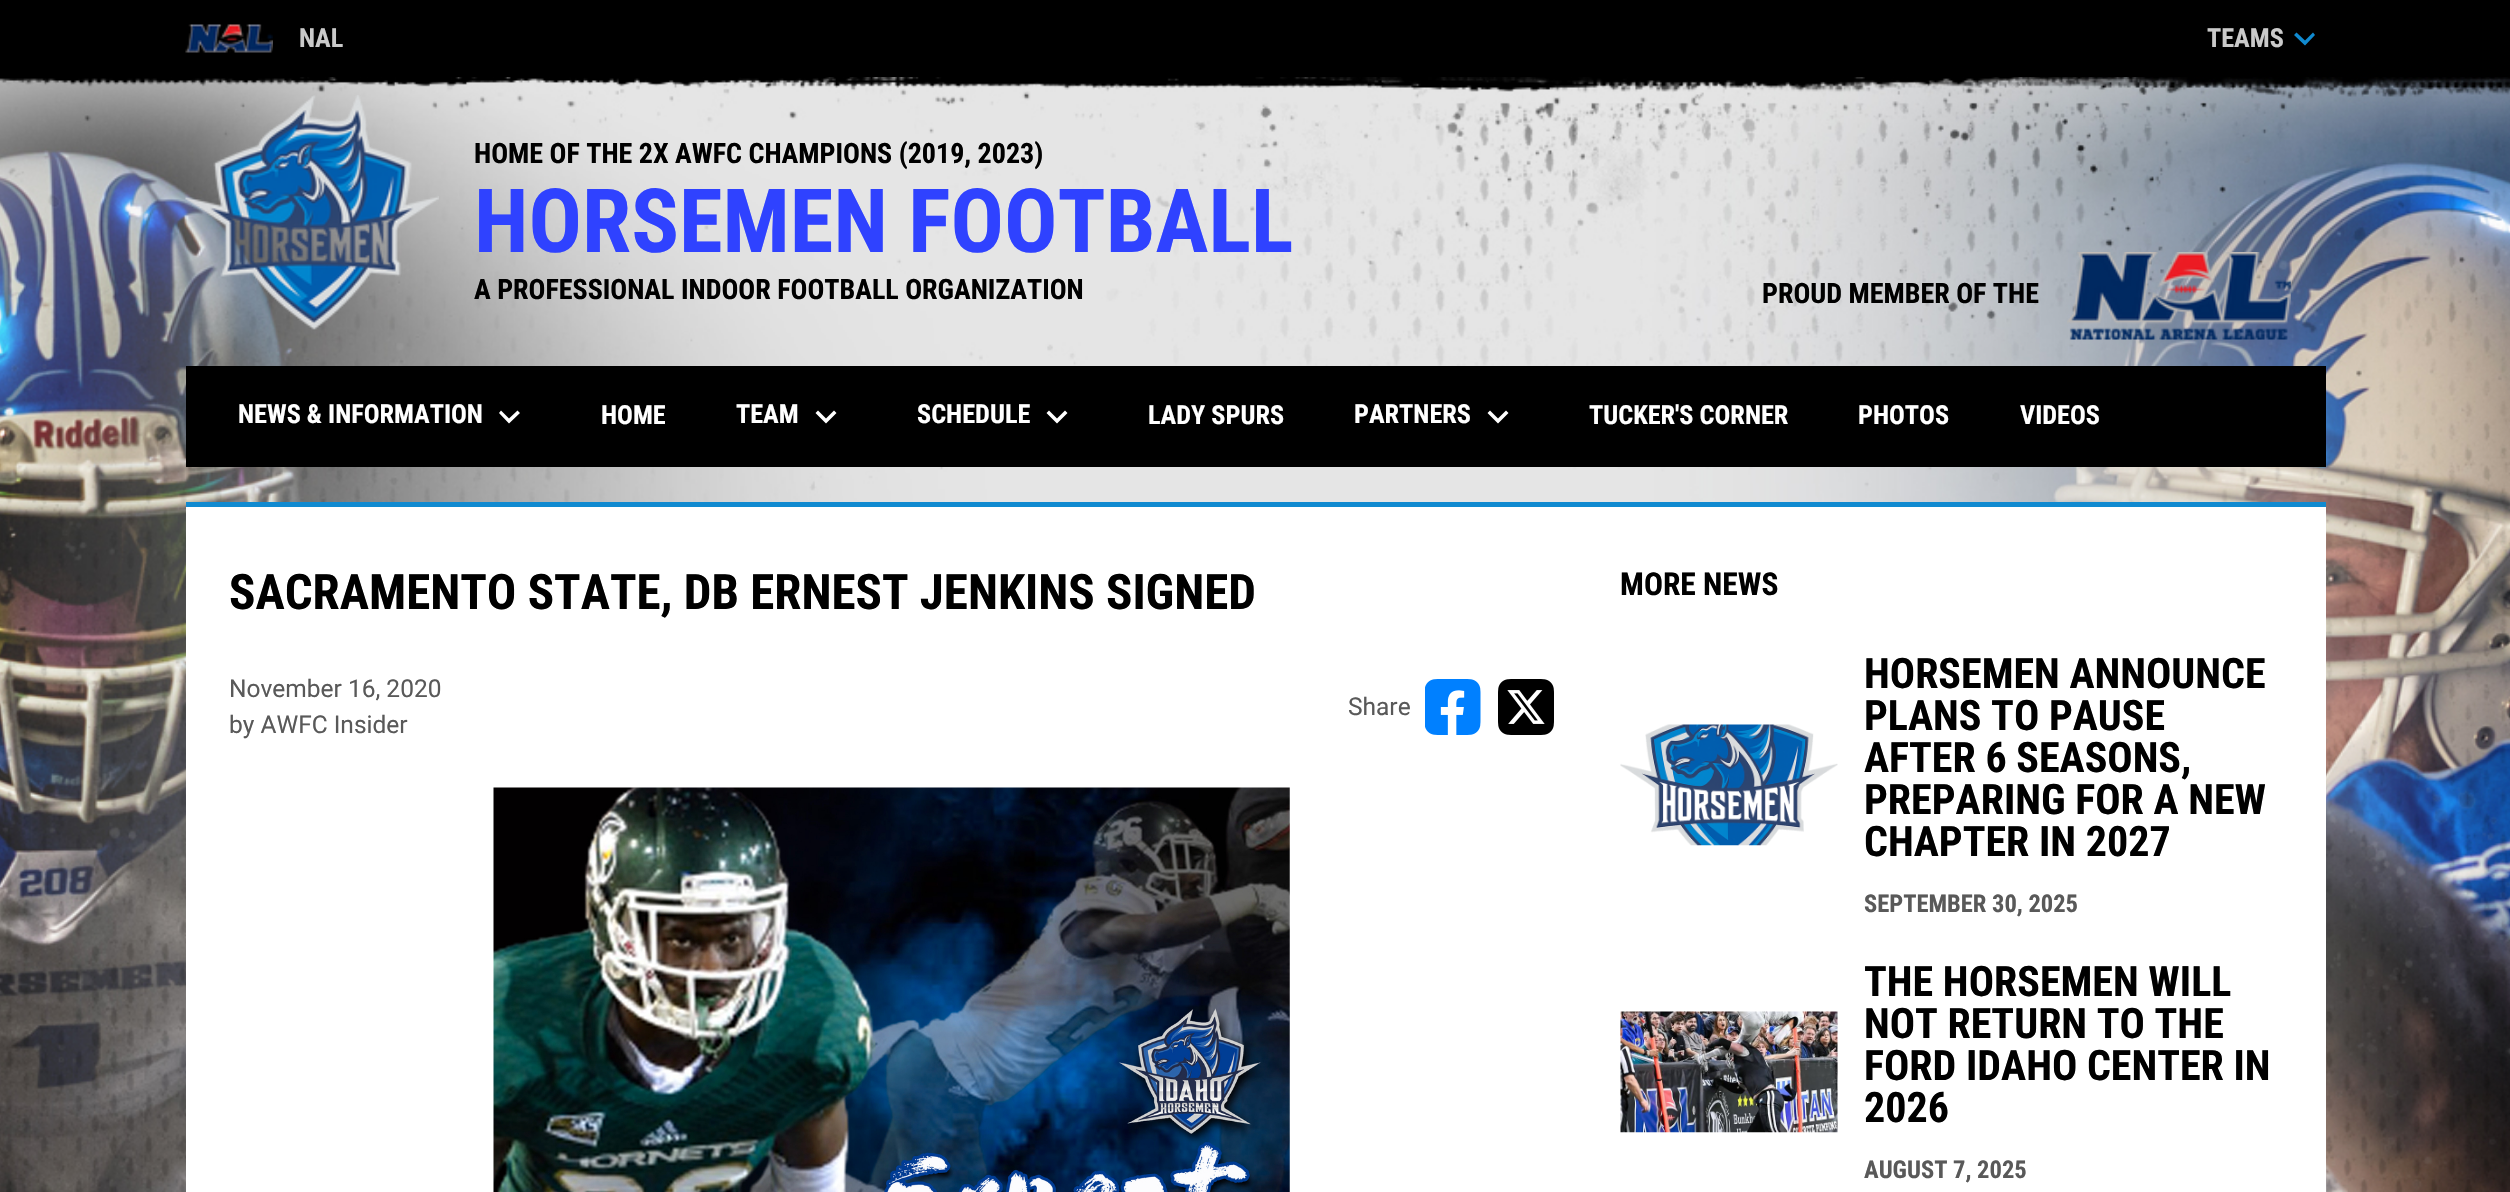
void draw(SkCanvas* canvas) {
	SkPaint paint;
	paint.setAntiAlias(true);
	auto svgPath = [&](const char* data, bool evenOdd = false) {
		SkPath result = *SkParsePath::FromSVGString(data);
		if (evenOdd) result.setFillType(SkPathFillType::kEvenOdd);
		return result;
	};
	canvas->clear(0xffffffff);
	paint.setColor(0xff000000);
	canvas->drawRect(SkRect::MakeXYWH(0, 0, 2510, 77), paint);
	canvas->drawImageRect(SkImages::DeferredFromEncodedData(SkData::MakeFromFileName("img1.png")), SkRect::MakeXYWH(185, 24, 88, 29), SkSamplingOptions());
	SkFont f1(fontMgr->matchFamilyStyle("Roboto Condensed", SkFontStyle::Bold()), 26.25);
	f1.setSubpixel(true);
	paint.setColor(0xffcacaca);
	canvas->drawString("NAL", 299, 47, f1, paint);
	canvas->drawString("TEAMS", 2207, 47, f1, paint);
	paint.setColor(0xff108ad0);
	canvas->drawPath(svgPath("M2296.5 32.5L2305 40.5L2313 32.5L2315 35L2305 45.5L2294 35Z"), paint);
	canvas->drawImageRect(SkImages::DeferredFromEncodedData(SkData::MakeFromFileName("img2.png")), SkRect::MakeXYWH(0, 77, 2510, 1115), SkSamplingOptions());
	canvas->drawImageRect(SkImages::DeferredFromEncodedData(SkData::MakeFromFileName("img3.png")), SkRect::MakeXYWH(185, 95, 254, 235), SkSamplingOptions());
	SkFont f2(fontMgr->matchFamilyStyle("Roboto Condensed", SkFontStyle::Bold()), 28);
	f2.setSubpixel(true);
	paint.setColor(0xff000000);
	canvas->drawString("HOME OF THE 2X AWFC CHAMPIONS (2019, 2023)", 474, 163, f2, paint);
	SkFont f3(fontMgr->matchFamilyStyle("Roboto Condensed", SkFontStyle::Bold()), 88.75);
	f3.setSubpixel(true);
	paint.setColor(0xff2f42ff);
	canvas->drawString("HORSEMEN FOOTBALL", 474, 252, f3, paint);
	paint.setColor(0xff000000);
	canvas->drawString("A PROFESSIONAL INDOOR FOOTBALL ORGANIZATION", 474, 299, f2, paint);
	canvas->drawString("PROUD MEMBER OF THE", 1762, 303, f2, paint);
	canvas->drawImageRect(SkImages::DeferredFromEncodedData(SkData::MakeFromFileName("img4.png")), SkRect::MakeXYWH(2067, 252, 224, 88), SkSamplingOptions());
	canvas->drawRect(SkRect::MakeXYWH(186, 366, 2140, 101), paint);
	paint.setColor(0xffffffff);
	canvas->drawString("NEWS & INFORMATION", 238, 423, f1, paint);
	canvas->drawPath(svgPath("M501 410.5L509 418.5L517.5 410.5L520 413L509 423.5L499 413Z"), paint);
	canvas->drawString("HOME", 601, 424, f1, paint);
	canvas->drawString("TEAM", 736, 423, f1, paint);
	canvas->drawPath(svgPath("M818 410.5L826 418.5L834 410.5L836.5 413L826 423.5L815.5 413Z"), paint);
	canvas->drawString("SCHEDULE", 917, 423, f1, paint);
	canvas->drawPath(svgPath("M1049 410.5L1057 418.5L1065 410.5L1067.5 413L1057 423.5L1046.5 413Z"), paint);
	canvas->drawString("LADY SPURS", 1148, 424, f1, paint);
	canvas->drawString("PARTNERS", 1354, 423, f1, paint);
	canvas->drawPath(svgPath("M1490 410.5L1498 418.5L1506 410.5L1508.5 413L1498 423.5L1487.5 413Z"), paint);
	canvas->drawString("TUCKER'S CORNER", 1589, 424, f1, paint);
	canvas->drawString("PHOTOS", 1858, 424, f1, paint);
	canvas->drawString("VIDEOS", 2020, 424, f1, paint);
	canvas->drawRect(SkRect::MakeXYWH(186, 507, 2140, 685), paint);
	paint.setColor(0xff108ad0);
	canvas->drawRect(SkRect::MakeXYWH(186, 502, 2140, 5), paint);
	SkFont f4(fontMgr->matchFamilyStyle("Roboto Condensed", SkFontStyle::Bold()), 49);
	f4.setSubpixel(true);
	paint.setColor(0xff000000);
	canvas->drawString("SACRAMENTO STATE, DB ERNEST JENKINS SIGNED", 229, 609, f4, paint);
	SkFont f5(fontMgr->matchFamilyStyle("Roboto", SkFontStyle::Normal()), 24.5);
	f5.setSubpixel(true);
	paint.setColor(0xff595959);
	canvas->drawString("November 16, 2020", 229, 697, f5, paint);
	canvas->drawString("by AWFC Insider", 229, 733, f5, paint);
	canvas->drawString("Share", 1348, 715, f5, paint);
	canvas->drawImageRect(SkImages::DeferredFromEncodedData(SkData::MakeFromFileName("img5.png")), SkRect::MakeXYWH(1425, 679, 56, 56), SkSamplingOptions());
	canvas->drawImageRect(SkImages::DeferredFromEncodedData(SkData::MakeFromFileName("img6.png")), SkRect::MakeXYWH(1498, 679, 56, 56), SkSamplingOptions());
	canvas->drawImageRect(SkImages::DeferredFromEncodedData(SkData::MakeFromFileName("img7.png")), SkRect::MakeXYWH(493, 787, 797, 405), SkSamplingOptions());
	SkFont f6(fontMgr->matchFamilyStyle("Roboto Condensed", SkFontStyle::Bold()), 31.5);
	f6.setSubpixel(true);
	paint.setColor(0xff000000);
	canvas->drawString("MORE NEWS", 1620, 595, f6, paint);
	canvas->drawImageRect(SkImages::DeferredFromEncodedData(SkData::MakeFromFileName("img8.png")), SkRect::MakeXYWH(1620, 724, 218, 122), SkSamplingOptions());
	SkFont f7(fontMgr->matchFamilyStyle("Roboto Condensed", SkFontStyle::Bold()), 42);
	f7.setSubpixel(true);
	canvas->drawString("HORSEMEN ANNOUNCE", 1864, 688, f7, paint);
	canvas->drawString("PLANS TO PAUSE", 1864, 730, f7, paint);
	canvas->drawString("AFTER 6 SEASONS,", 1864, 772, f7, paint);
	canvas->drawString("PREPARING FOR A NEW", 1864, 814, f7, paint);
	canvas->drawString("CHAPTER IN 2027", 1864, 856, f7, paint);
	SkFont f8(fontMgr->matchFamilyStyle("Roboto Condensed", SkFontStyle::Bold()), 24.5);
	f8.setSubpixel(true);
	paint.setColor(0xff595959);
	canvas->drawString("SEPTEMBER 30, 2025", 1864, 912, f8, paint);
	canvas->drawImageRect(SkImages::DeferredFromEncodedData(SkData::MakeFromFileName("img9.png")), SkRect::MakeXYWH(1620, 1011, 218, 122), SkSamplingOptions());
	paint.setColor(0xff000000);
	canvas->drawString("THE HORSEMEN WILL", 1864, 996, f7, paint);
	canvas->drawString("NOT RETURN TO THE", 1864, 1038, f7, paint);
	canvas->drawString("FORD IDAHO CENTER IN", 1864, 1080, f7, paint);
	canvas->drawString("2026", 1864, 1122, f7, paint);
	paint.setColor(0xff595959);
	canvas->drawString("AUGUST 7, 2025", 1864, 1178, f8, paint);
}
